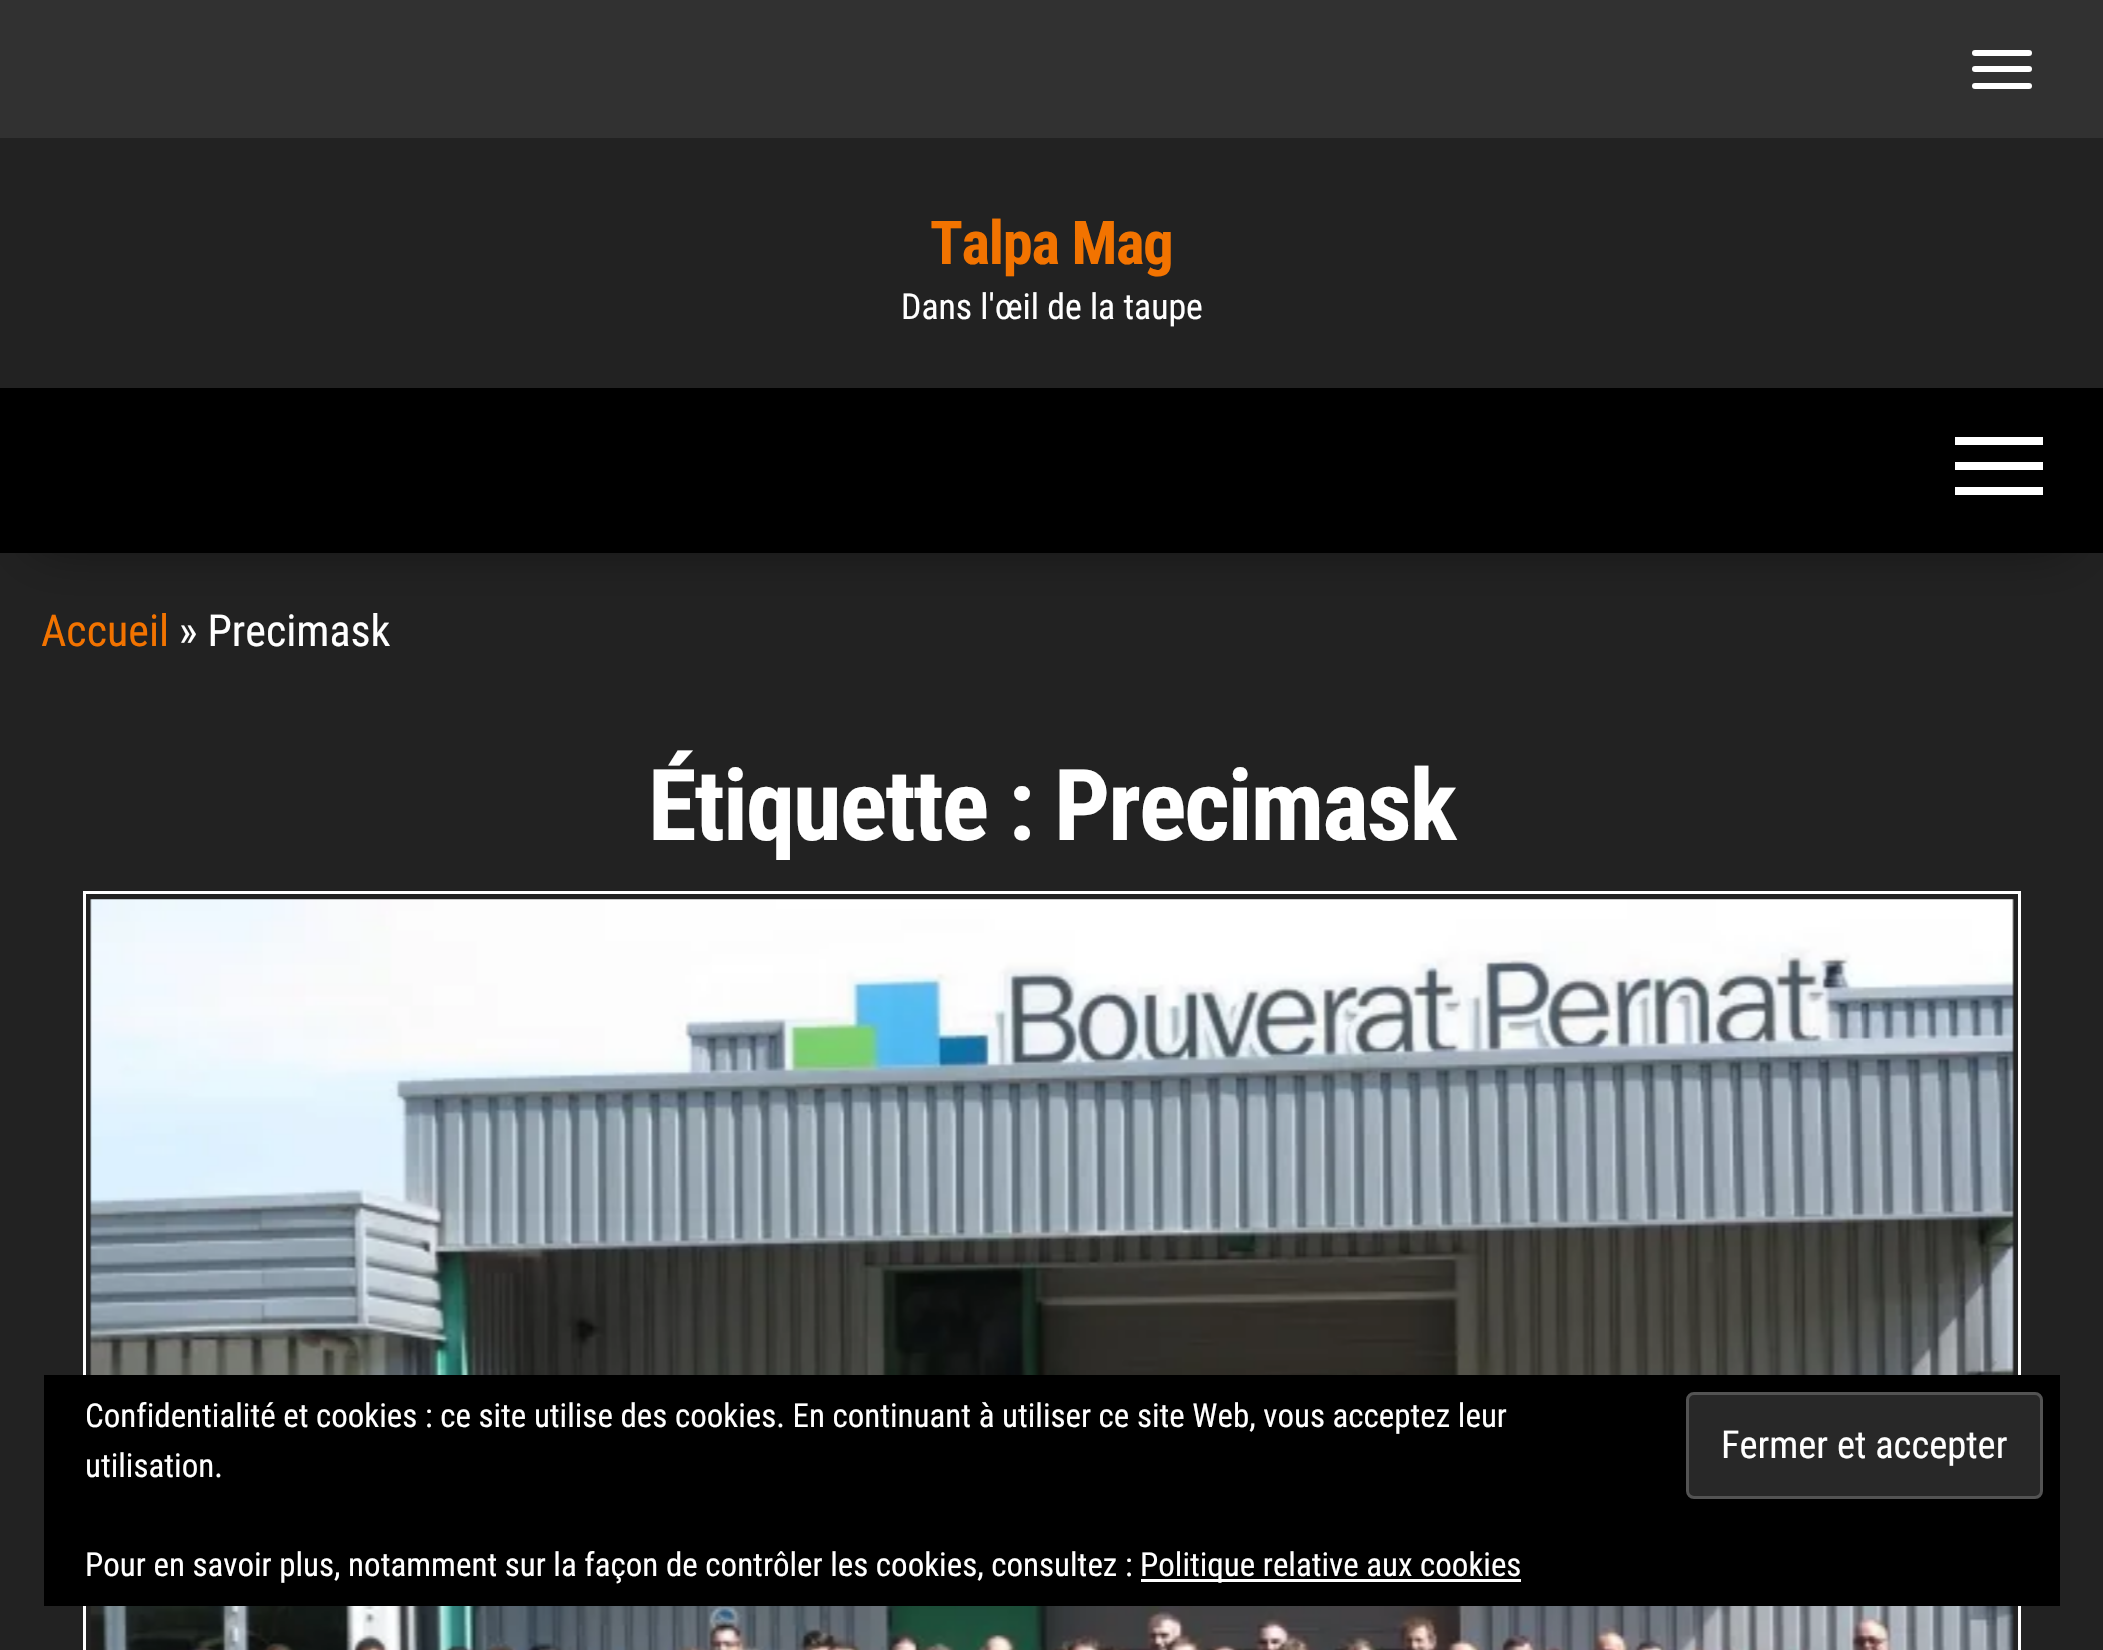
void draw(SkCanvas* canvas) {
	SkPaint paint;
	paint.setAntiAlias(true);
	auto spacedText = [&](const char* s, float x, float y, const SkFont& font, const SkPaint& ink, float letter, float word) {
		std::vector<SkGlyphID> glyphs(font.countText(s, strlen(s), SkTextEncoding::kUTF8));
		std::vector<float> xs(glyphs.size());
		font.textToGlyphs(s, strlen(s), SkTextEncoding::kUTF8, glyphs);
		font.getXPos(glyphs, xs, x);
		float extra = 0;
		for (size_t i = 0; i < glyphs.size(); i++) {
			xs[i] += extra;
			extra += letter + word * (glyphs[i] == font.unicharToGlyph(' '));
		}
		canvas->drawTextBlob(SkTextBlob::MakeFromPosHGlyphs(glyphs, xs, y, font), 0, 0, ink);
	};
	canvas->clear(0xff222222);
	paint.setColor(0xff313131);
	canvas->drawRect(SkRect::MakeXYWH(0, 0, 2103, 138), paint);
	paint.setColor(0xffffffff);
	canvas->drawRoundRect(SkRect::MakeXYWH(1972, 50, 60, 6), 3, 3, paint);
	canvas->drawRoundRect(SkRect::MakeXYWH(1972, 66, 60, 6), 3, 3, paint);
	canvas->drawRoundRect(SkRect::MakeXYWH(1972, 83, 60, 6), 3, 3, paint);
	SkFont f1(fontMgr->matchFamilyStyle("Roboto Condensed", SkFontStyle::Bold()), 60.5);
	f1.setSubpixel(true);
	paint.setColor(0xfff27300);
	spacedText("Talpa Mag", 930, 264, f1, paint, -1.25, 0);
	SkFont f2(fontMgr->matchFamilyStyle("Roboto Condensed", SkFontStyle::Normal()), 35.75);
	f2.setSubpixel(true);
	paint.setColor(0xffffffff);
	canvas->drawString("Dans l'œil de la taupe", 901, 319, f2, paint);
	paint.setColor(0x6b000000);
	paint.setMaskFilter(SkMaskFilter::MakeBlur(kNormal_SkBlurStyle, 27.5));
	canvas->drawRect(SkRect::MakeXYWH(33, 448, 2038, 99), paint);
	paint.setMaskFilter(nullptr);
	paint.setColor(0xff000000);
	canvas->drawRect(SkRect::MakeXYWH(0, 388, 2103, 165), paint);
	paint.setColor(0xffffffff);
	canvas->drawRect(SkRect::MakeXYWH(1955, 437, 88, 8), paint);
	canvas->drawRect(SkRect::MakeXYWH(1955, 462, 88, 8), paint);
	canvas->drawRect(SkRect::MakeXYWH(1955, 487, 88, 8), paint);
	SkFont f3(fontMgr->matchFamilyStyle("Roboto Condensed", SkFontStyle::Normal()), 44);
	f3.setSubpixel(true);
	paint.setColor(0xfff27300);
	canvas->drawString("Accueil", 41, 646, f3, paint);
	paint.setColor(0xffffffff);
	canvas->drawString("» Precimask", 179, 646, f3, paint);
	SkFont f4(fontMgr->matchFamilyStyle("Roboto Condensed", SkFontStyle::Bold()), 99);
	f4.setSubpixel(true);
	spacedText("Étiquette : Precimask", 648, 840, f4, paint, -2, 0);
	paint.setStroke(true);
	paint.setStrokeWidth(3);
	canvas->drawRect(SkRect::MakeXYWH(84.5, 892.5, 1935, 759), paint);
	canvas->drawImageRect(SkImages::DeferredFromEncodedData(SkData::MakeFromFileName("img1.png")), SkRect::MakeXYWH(90, 899, 1924, 751), SkSamplingOptions());
	paint.setStroke(false);
	paint.setColor(0xff000000);
	canvas->drawRect(SkRect::MakeXYWH(44, 1375, 2016, 231), paint);
	SkFont f5(fontMgr->matchFamilyStyle("Roboto Condensed", SkFontStyle::Normal()), 33);
	f5.setSubpixel(true);
	paint.setColor(0xffffffff);
	canvas->drawString("Confidentialité et cookies : ce site utilise des cookies. En continuant à utiliser ce site Web, vous acceptez leur", 85, 1427, f5, paint);
	canvas->drawString("utilisation.", 85, 1477, f5, paint);
	paint.setColor(0xff282828);
	canvas->drawRoundRect(SkRect::MakeXYWH(1687.5, 1393.5, 354, 104), 6.5, 6.5, paint);
	paint.setStroke(true);
	paint.setColor(0xff535353);
	canvas->drawRoundRect(SkRect::MakeXYWH(1687.5, 1393.5, 354, 104), 6.5, 6.5, paint);
	SkFont f6(fontMgr->matchFamilyStyle("Roboto Condensed", SkFontStyle::Normal()), 38.5);
	f6.setSubpixel(true);
	paint.setStroke(false);
	paint.setColor(0xffffffff);
	canvas->drawString("Fermer et accepter", 1721, 1458, f6, paint);
	canvas->drawString("Pour en savoir plus, notamment sur la façon de contrôler les cookies, consultez :", 85, 1576, f5, paint);
	canvas->drawRect(SkRect::MakeXYWH(1141, 1579, 380, 3), paint);
	canvas->drawString("Politique relative aux cookies", 1140, 1576, f5, paint);
}
